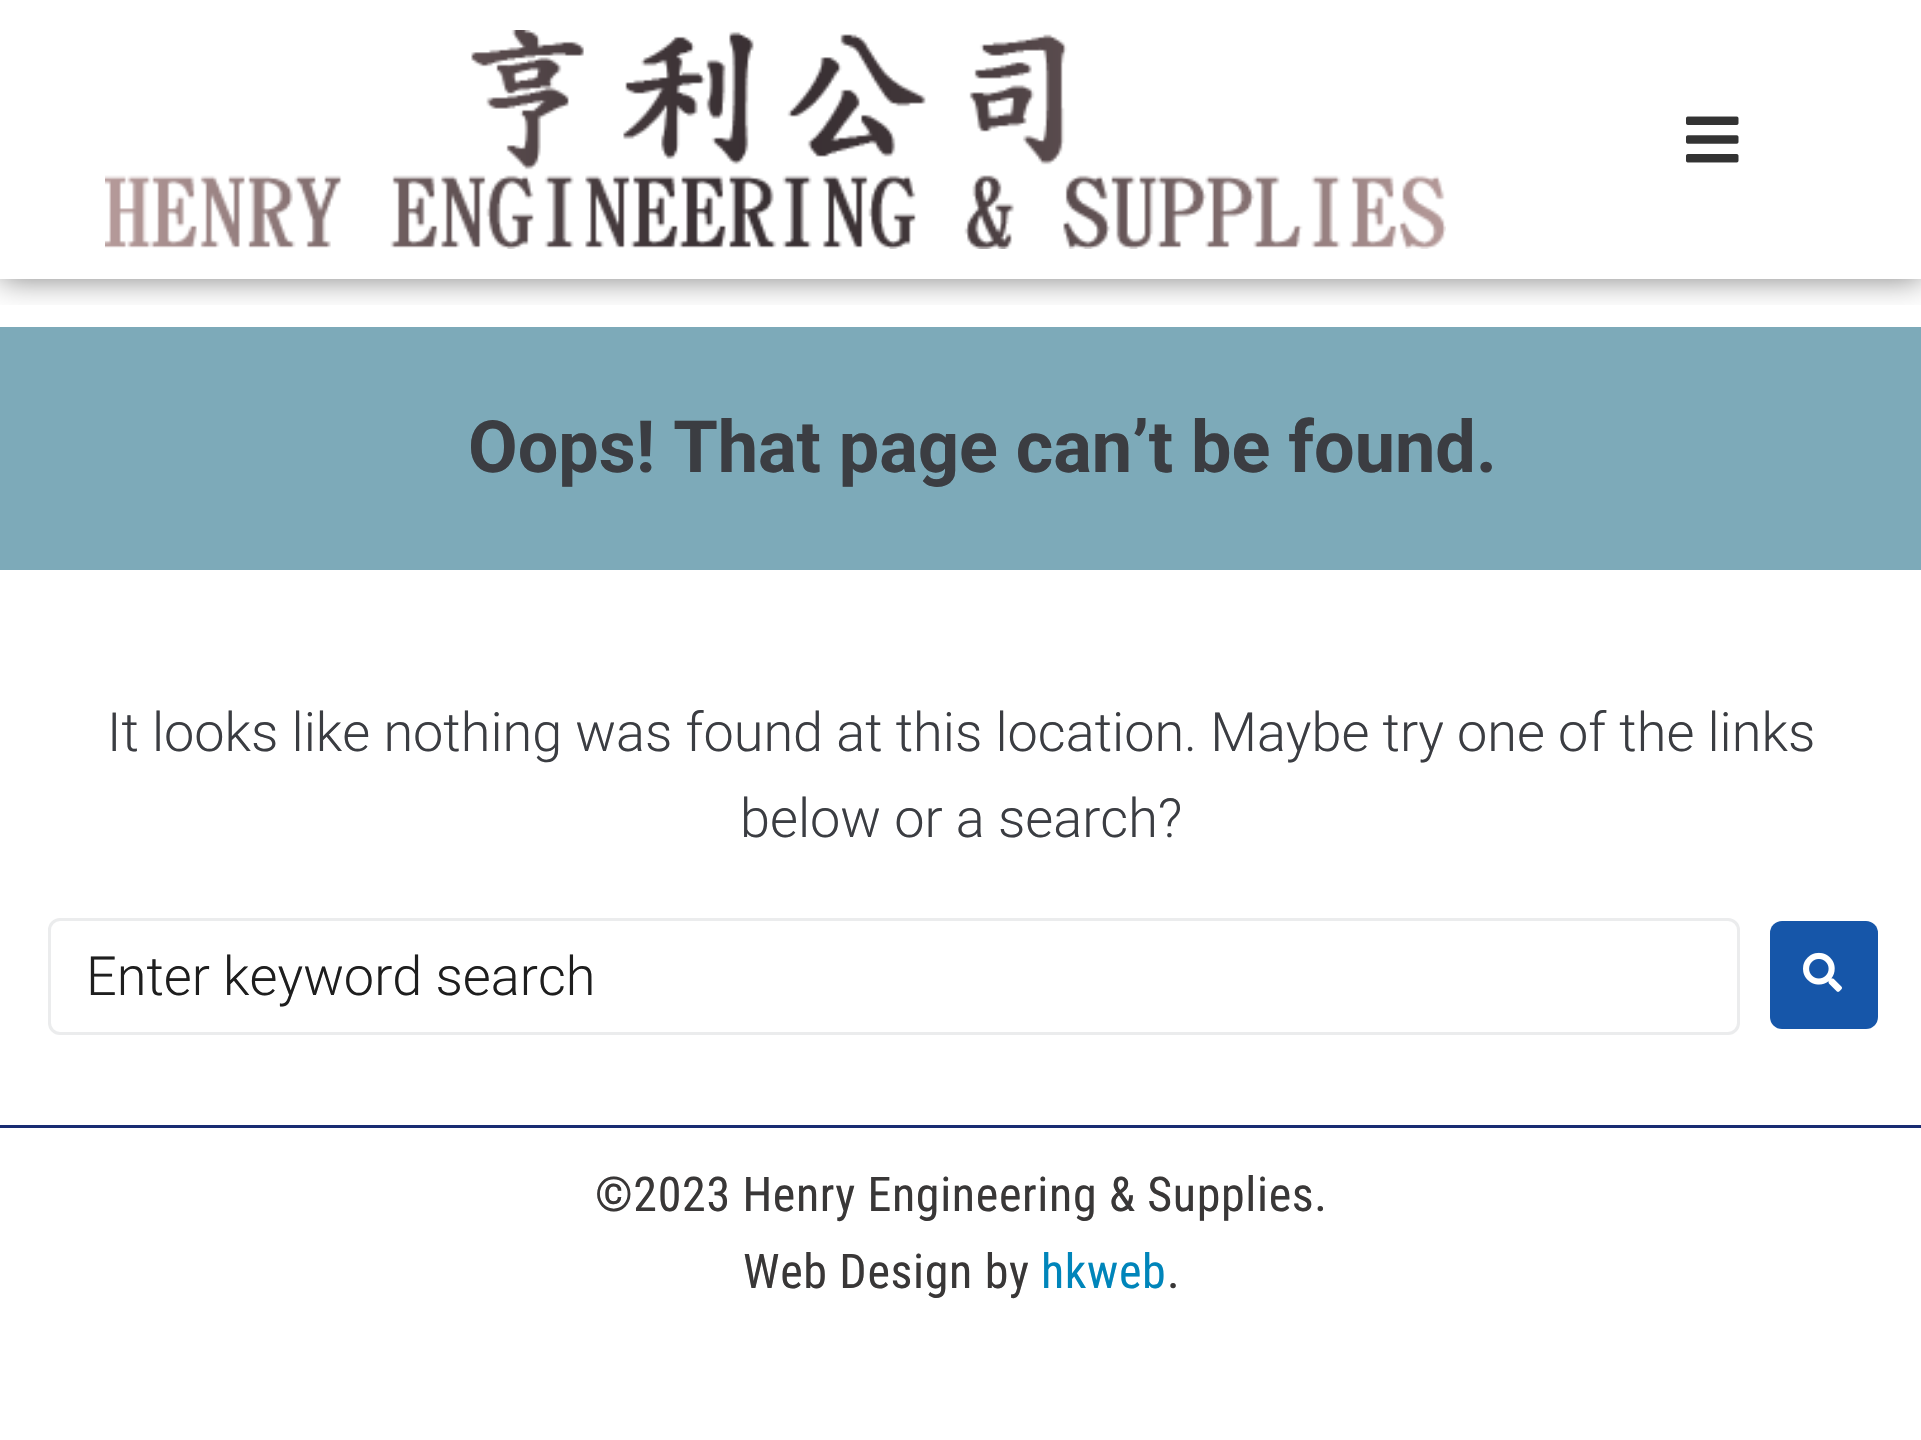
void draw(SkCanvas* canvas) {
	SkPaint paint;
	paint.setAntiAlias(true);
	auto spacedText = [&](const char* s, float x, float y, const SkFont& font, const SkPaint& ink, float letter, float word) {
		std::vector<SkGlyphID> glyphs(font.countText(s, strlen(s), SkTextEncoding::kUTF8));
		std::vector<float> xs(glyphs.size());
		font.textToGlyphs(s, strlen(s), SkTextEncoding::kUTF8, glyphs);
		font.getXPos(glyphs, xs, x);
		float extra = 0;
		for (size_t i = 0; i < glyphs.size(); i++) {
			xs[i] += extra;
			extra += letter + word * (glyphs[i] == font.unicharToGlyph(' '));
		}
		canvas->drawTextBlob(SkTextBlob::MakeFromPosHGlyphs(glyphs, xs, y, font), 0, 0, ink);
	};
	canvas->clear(0xffffffff);
	canvas->save();
	canvas->clipRect(SkRect::MakeXYWH(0, 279, 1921, 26));
	paint.setColor(0x80000000);
	paint.setMaskFilter(SkMaskFilter::MakeBlur(kNormal_SkBlurStyle, 15));
	canvas->drawRect(SkRect::MakeXYWH(0, 0, 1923, 279), paint);
	paint.setMaskFilter(nullptr);
	canvas->restore();
	canvas->drawImageRect(SkImages::DeferredFromEncodedData(SkData::MakeFromFileName("img1.png")), SkRect::MakeXYWH(105, 30, 1341, 219), SkSamplingOptions());
	canvas->drawImageRect(SkImages::DeferredFromEncodedData(SkData::MakeFromFileName("img2.png")), SkRect::MakeXYWH(1686, 116, 53, 47), SkSamplingOptions());
	paint.setColor(0xff7daab9);
	canvas->drawRect(SkRect::MakeXYWH(0, 327, 1921, 243), paint);
	SkFont f1(fontMgr->matchFamilyStyle("Roboto", SkFontStyle::Bold()), 72);
	f1.setSubpixel(true);
	paint.setColor(0xff3b3d42);
	canvas->drawString("Oops! That page can’t be found.", 468, 472, f1, paint);
	SkFont f2(fontMgr->matchFamilyStyle("Roboto", SkFontStyle(300, SkFontStyle::kNormal_Width, SkFontStyle::kUpright_Slant)), 54);
	f2.setSubpixel(true);
	canvas->drawString("It looks like nothing was found at this location. Maybe try one of the links", 107, 751, f2, paint);
	canvas->drawString("below or a search?", 740, 837, f2, paint);
	paint.setStroke(true);
	paint.setStrokeWidth(3);
	paint.setColor(0xffebeced);
	canvas->drawRoundRect(SkRect::MakeXYWH(49.5, 919.5, 1689, 114), 10.5, 10.5, paint);
	paint.setStroke(false);
	paint.setColor(0xff1e1e1e);
	canvas->drawString("Enter keyword search", 86, 995, f2, paint);
	paint.setColor(0xff1656a9);
	canvas->drawRoundRect(SkRect::MakeXYWH(1770, 921, 108, 108), 12, 12, paint);
	canvas->drawImageRect(SkImages::DeferredFromEncodedData(SkData::MakeFromFileName("img3.png")), SkRect::MakeXYWH(1803, 952, 39, 40), SkSamplingOptions());
	paint.setColor(0xff182c72);
	canvas->drawRect(SkRect::MakeXYWH(0, 1125, 1921, 3), paint);
	SkFont f3(fontMgr->matchFamilyStyle("Roboto Condensed", SkFontStyle::Normal()), 48);
	f3.setSubpixel(true);
	paint.setColor(0xff393737);
	spacedText("©2023 Henry Engineering & Supplies.", 595, 1211, f3, paint, 0.65, 0);
	spacedText("Web Design by", 743, 1288, f3, paint, 0.65, 0);
	paint.setColor(0xff0085ba);
	spacedText("hkweb", 1041, 1288, f3, paint, 0.65, 0);
	paint.setColor(0xff393737);
	spacedText(".", 1167, 1288, f3, paint, 0.65, 0);
}
